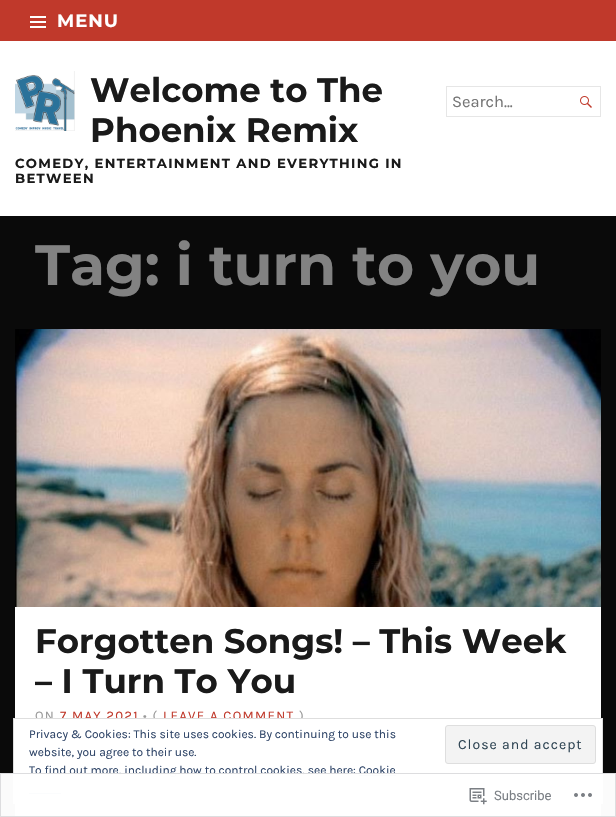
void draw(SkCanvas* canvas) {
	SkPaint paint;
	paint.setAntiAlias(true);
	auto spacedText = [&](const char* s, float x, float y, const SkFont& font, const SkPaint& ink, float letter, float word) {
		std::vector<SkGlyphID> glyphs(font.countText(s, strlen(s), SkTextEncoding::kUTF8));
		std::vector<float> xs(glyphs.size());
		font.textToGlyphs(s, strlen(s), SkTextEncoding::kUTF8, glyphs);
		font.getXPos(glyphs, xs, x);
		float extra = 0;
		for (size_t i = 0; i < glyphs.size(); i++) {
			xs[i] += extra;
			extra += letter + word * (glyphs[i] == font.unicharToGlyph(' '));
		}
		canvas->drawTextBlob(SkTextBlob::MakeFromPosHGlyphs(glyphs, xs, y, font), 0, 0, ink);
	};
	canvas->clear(0xff0a0a0a);
	paint.setColor(0xffc0392b);
	canvas->drawRect(SkRect::MakeXYWH(0, 0, 616, 41), paint);
	canvas->drawImageRect(SkImages::DeferredFromEncodedData(SkData::MakeFromFileName("img1.png")), SkRect::MakeXYWH(30, 16, 16, 12), SkSamplingOptions());
	SkFont f1(fontMgr->matchFamilyStyle("Montserrat", SkFontStyle(100, SkFontStyle::kNormal_Width, SkFontStyle::kUpright_Slant)), 18);
	f1.setSubpixel(true);
	paint.setColor(0xffffffff);
	spacedText("MENU", 57, 27, f1, paint, 1, 0);
	canvas->drawRect(SkRect::MakeXYWH(0, 41, 616, 175), paint);
	canvas->drawImageRect(SkImages::DeferredFromEncodedData(SkData::MakeFromFileName("img2.png")), SkRect::MakeXYWH(15, 71, 60, 60), SkSamplingOptions());
	SkFont f2(fontMgr->matchFamilyStyle("Montserrat", SkFontStyle(100, SkFontStyle::kNormal_Width, SkFontStyle::kUpright_Slant)), 34);
	f2.setSubpixel(true);
	paint.setColor(0xff1a1a1a);
	canvas->drawString("Welcome to The", 90, 102, f2, paint);
	canvas->drawString("Phoenix Remix", 90, 142, f2, paint);
	SkFont f3(fontMgr->matchFamilyStyle("Montserrat", SkFontStyle(100, SkFontStyle::kNormal_Width, SkFontStyle::kUpright_Slant)), 13.2);
	f3.setSubpixel(true);
	spacedText("COMEDY, ENTERTAINMENT AND EVERYTHING IN", 15, 168, f3, paint, 1.3, 0);
	spacedText("BETWEEN", 15, 183, f3, paint, 1.3, 0);
	paint.setStroke(true);
	paint.setStrokeWidth(1);
	paint.setColor(0xffe6e6e6);
	canvas->drawRect(SkRect::MakeXYWH(446.5, 86.5, 154, 30), paint);
	SkFont f4(fontMgr->matchFamilyStyle("Karla", SkFontStyle::Normal()), 16.5);
	f4.setSubpixel(true);
	paint.setStroke(false);
	paint.setColor(0xff757575);
	canvas->drawString("Search...", 452, 107, f4, paint);
	canvas->drawImageRect(SkImages::DeferredFromEncodedData(SkData::MakeFromFileName("img3.png")), SkRect::MakeXYWH(580, 96, 12, 12), SkSamplingOptions());
	SkFont f5(fontMgr->matchFamilyStyle("Montserrat", SkFontStyle(100, SkFontStyle::kNormal_Width, SkFontStyle::kUpright_Slant)), 56.75);
	f5.setSubpixel(true);
	paint.setColor(0xff828282);
	canvas->drawString("Tag: i turn to you", 35, 285, f5, paint);
	paint.setColor(0xffffffff);
	canvas->drawRect(SkRect::MakeXYWH(15, 607, 586, 111), paint);
	canvas->drawImageRect(SkImages::DeferredFromEncodedData(SkData::MakeFromFileName("img4.png")), SkRect::MakeXYWH(15, 329, 586, 278), SkSamplingOptions());
	paint.setColor(0xff1a1a1a);
	canvas->drawString("Forgotten Songs! – This Week", 35, 653, f2, paint);
	canvas->drawString("– I Turn To You", 35, 693, f2, paint);
	SkFont f6(fontMgr->matchFamilyStyle("Karla", SkFontStyle::Normal()), 13.2);
	f6.setSubpixel(true);
	paint.setColor(0xff999999);
	spacedText("ON", 35, 720, f6, paint, 1.3, 0);
	paint.setColor(0xffc0392b);
	spacedText("7 MAY 2021", 60, 720, f6, paint, 1.3, 0);
	paint.setColor(0xff999999);
	spacedText("• (", 143, 720, f6, paint, 1.3, 0);
	paint.setColor(0xffc0392b);
	spacedText("LEAVE A COMMENT", 163, 720, f6, paint, 1.3, 0);
	paint.setColor(0xff999999);
	spacedText(")", 299, 720, f6, paint, 1.3, 0);
	paint.setColor(0xffffffff);
	canvas->drawRect(SkRect::MakeXYWH(15, 804, 586, 13), paint);
	canvas->drawRect(SkRect::MakeXYWH(13.5, 718.5, 589, 85), paint);
	paint.setStroke(true);
	paint.setColor(0xffdedede);
	canvas->drawRect(SkRect::MakeXYWH(13.5, 718.5, 589, 85), paint);
	SkFont f7(fontMgr->matchFamilyStyle("Karla", SkFontStyle::Normal()), 12);
	f7.setSubpixel(true);
	paint.setStroke(false);
	paint.setColor(0xff2e4467);
	canvas->drawString("Privacy & Cookies: This site uses cookies. By continuing to use this", 29, 738, f7, paint);
	canvas->drawString("website, you agree to their use.", 29, 756, f7, paint);
	paint.setColor(0xfff3f3f3);
	canvas->drawRoundRect(SkRect::MakeXYWH(445.5, 725.5, 150, 38), 2.5, 2.5, paint);
	paint.setStroke(true);
	paint.setColor(0xffdedede);
	canvas->drawRoundRect(SkRect::MakeXYWH(445.5, 725.5, 150, 38), 2.5, 2.5, paint);
	SkFont f8(fontMgr->matchFamilyStyle("Karla", SkFontStyle::Normal()), 14);
	f8.setSubpixel(true);
	paint.setStroke(false);
	paint.setColor(0xff2e4453);
	spacedText("Close and accept", 458, 749, f8, paint, 1, 0);
	paint.setColor(0xff2e4467);
	canvas->drawString("To find out more, including how to control cookies, see here: Cookie", 29, 774, f7, paint);
	canvas->drawRect(SkRect::MakeXYWH(359, 775, 37, 1), paint);
	canvas->drawRect(SkRect::MakeXYWH(29, 793, 32, 1), paint);
	paint.setColor(0xfaffffff);
	canvas->drawRect(SkRect::MakeXYWH(0, 773, 616, 44), paint);
	paint.setStroke(true);
	paint.setColor(0xfadcdcde);
	canvas->drawRect(SkRect::MakeXYWH(0.5, 773.5, 615, 43), paint);
	canvas->drawImageRect(SkImages::DeferredFromEncodedData(SkData::MakeFromFileName("img5.png")), SkRect::MakeXYWH(469, 788, 18, 17), SkSamplingOptions());
	SkFont f9(fontMgr->matchFamilyStyle("Roboto", SkFontStyle::Normal()), 13);
	f9.setSubpixel(true);
	paint.setStroke(false);
	paint.setColor(0xff7b7f85);
	canvas->drawString("Subscribe", 494, 800, f9, paint);
	canvas->drawImageRect(SkImages::DeferredFromEncodedData(SkData::MakeFromFileName("img6.png")), SkRect::MakeXYWH(574, 793, 18, 4), SkSamplingOptions());
}
